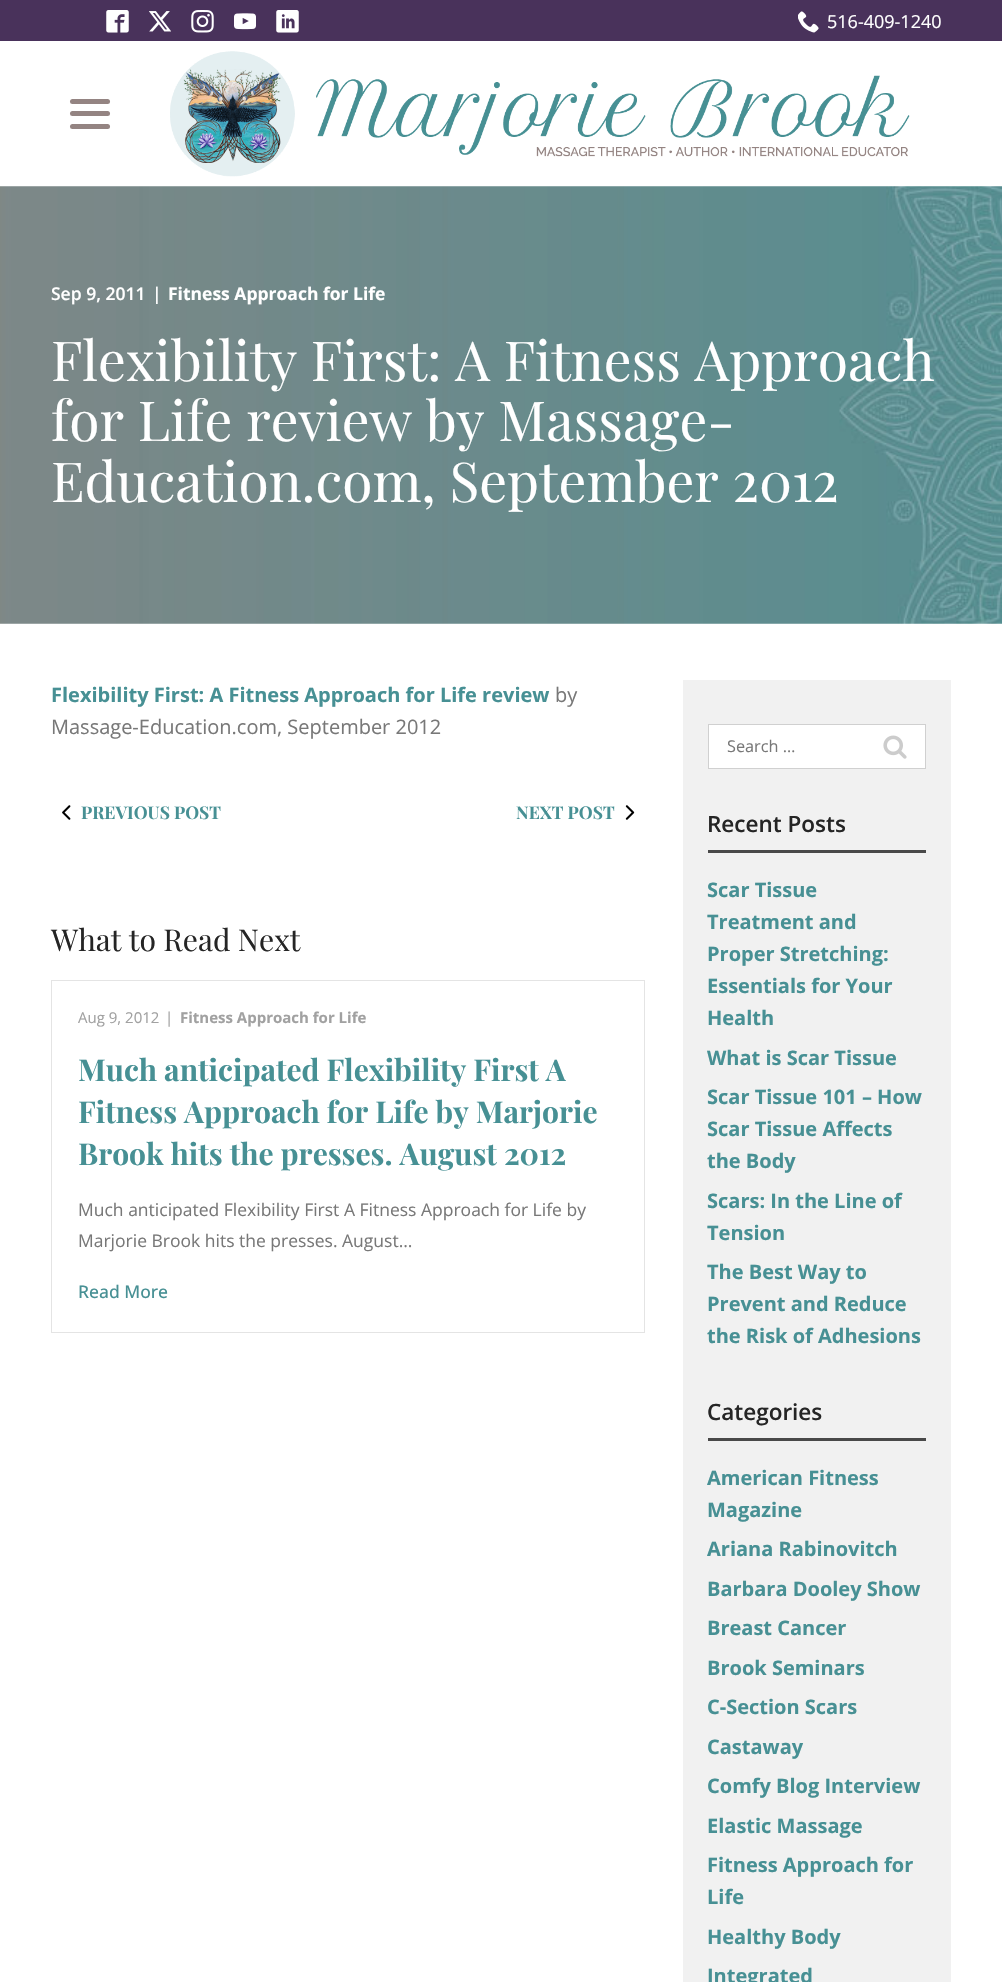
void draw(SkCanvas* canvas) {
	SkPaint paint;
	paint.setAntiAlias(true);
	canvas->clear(0xffffffff);
	paint.setColor(0xff49325b);
	canvas->drawRect(SkRect::MakeXYWH(0, 0, 1002, 41), paint);
	canvas->drawImageRect(SkImages::DeferredFromEncodedData(SkData::MakeFromFileName("img1.png")), SkRect::MakeXYWH(106, 10, 23, 23), SkSamplingOptions());
	canvas->drawImageRect(SkImages::DeferredFromEncodedData(SkData::MakeFromFileName("img2.png")), SkRect::MakeXYWH(149, 11, 22, 21), SkSamplingOptions());
	canvas->drawImageRect(SkImages::DeferredFromEncodedData(SkData::MakeFromFileName("img3.png")), SkRect::MakeXYWH(191, 10, 23, 23), SkSamplingOptions());
	canvas->drawImageRect(SkImages::DeferredFromEncodedData(SkData::MakeFromFileName("img4.png")), SkRect::MakeXYWH(234, 13, 22, 17), SkSamplingOptions());
	canvas->drawImageRect(SkImages::DeferredFromEncodedData(SkData::MakeFromFileName("img5.png")), SkRect::MakeXYWH(276, 10, 23, 23), SkSamplingOptions());
	canvas->drawImageRect(SkImages::DeferredFromEncodedData(SkData::MakeFromFileName("img6.png")), SkRect::MakeXYWH(798, 11, 21, 22), SkSamplingOptions());
	SkFont f1(fontMgr->matchFamilyStyle("Open Sans", SkFontStyle::Normal()), 18);
	f1.setSubpixel(true);
	paint.setColor(0xffffffff);
	canvas->drawString("516-409-1240", 827, 28, f1, paint);
	paint.setColor(0xff948482);
	canvas->drawRoundRect(SkRect::MakeXYWH(70, 111, 40, 5), 2.5, 2.5, paint);
	canvas->drawRoundRect(SkRect::MakeXYWH(70, 99, 40, 5), 2.5, 2.5, paint);
	canvas->drawRoundRect(SkRect::MakeXYWH(70, 124, 40, 5), 2.5, 2.5, paint);
	canvas->drawImageRect(SkImages::DeferredFromEncodedData(SkData::MakeFromFileName("img7.png")), SkRect::MakeXYWH(170, 51, 740, 126), SkSamplingOptions());
	canvas->drawImageRect(SkImages::DeferredFromEncodedData(SkData::MakeFromFileName("img8.png")), SkRect::MakeXYWH(0, 186, 1002, 438), SkSamplingOptions());
	SkFont f2(fontMgr->matchFamilyStyle("Open Sans", SkFontStyle(600, SkFontStyle::kNormal_Width, SkFontStyle::kUpright_Slant)), 17.5);
	f2.setSubpixel(true);
	paint.setColor(0xffffffff);
	canvas->drawString("Sep 9, 2011", 51, 300, f2, paint);
	canvas->drawString("|", 152, 300, f2, paint);
	SkFont f3(fontMgr->matchFamilyStyle("Open Sans", SkFontStyle::Bold()), 17.5);
	f3.setSubpixel(true);
	canvas->drawString("Fitness Approach for Life", 168, 300, f3, paint);
	SkFont f4(fontMgr->matchFamilyStyle("Playfair Display", SkFontStyle::Normal()), 55.1);
	f4.setSubpixel(true);
	canvas->drawString("Flexibility First: A Fitness Approach", 51, 381, f4, paint);
	canvas->drawString("for Life review by Massage-", 51, 441, f4, paint);
	canvas->drawString("Education.com, September 2012", 51, 502, f4, paint);
	SkFont f5(fontMgr->matchFamilyStyle("Open Sans", SkFontStyle::Bold()), 20);
	f5.setSubpixel(true);
	paint.setColor(0xff479094);
	canvas->drawString("Flexibility First: A Fitness Approach for Life review", 51, 702, f5, paint);
	SkFont f6(fontMgr->matchFamilyStyle("Open Sans", SkFontStyle::Normal()), 20);
	f6.setSubpixel(true);
	paint.setColor(0xff787878);
	canvas->drawString("by", 555, 702, f6, paint);
	canvas->drawString("Massage-Education.com, September 2012", 51, 734, f6, paint);
	canvas->drawImageRect(SkImages::DeferredFromEncodedData(SkData::MakeFromFileName("img9.png")), SkRect::MakeXYWH(62, 805, 9, 15), SkSamplingOptions());
	SkFont f7(fontMgr->matchFamilyStyle("Playfair Display", SkFontStyle::Bold()), 17.5);
	f7.setSubpixel(true);
	paint.setColor(0xff479094);
	canvas->drawString("PREVIOUS POST", 81, 819, f7, paint);
	canvas->drawString("NEXT POST", 516, 819, f7, paint);
	canvas->drawImageRect(SkImages::DeferredFromEncodedData(SkData::MakeFromFileName("img10.png")), SkRect::MakeXYWH(625, 805, 10, 15), SkSamplingOptions());
	SkFont f8(fontMgr->matchFamilyStyle("Playfair Display", SkFontStyle::Normal()), 30);
	f8.setSubpixel(true);
	paint.setColor(0xff252525);
	canvas->drawString("What to Read Next", 51, 951, f8, paint);
	paint.setStroke(true);
	paint.setStrokeWidth(1);
	paint.setColor(0xffe4e4e4);
	canvas->drawRect(SkRect::MakeXYWH(51.5, 980.5, 593, 352), paint);
	SkFont f9(fontMgr->matchFamilyStyle("Open Sans", SkFontStyle::Normal()), 15);
	f9.setSubpixel(true);
	paint.setStroke(false);
	paint.setColor(0xffa1a1a1);
	canvas->drawString("Aug 9, 2012", 78, 1023, f9, paint);
	canvas->drawString("|", 165, 1023, f9, paint);
	SkFont f10(fontMgr->matchFamilyStyle("Open Sans", SkFontStyle::Bold()), 15);
	f10.setSubpixel(true);
	canvas->drawString("Fitness Approach for Life", 180, 1023, f10, paint);
	SkFont f11(fontMgr->matchFamilyStyle("Playfair Display", SkFontStyle::Bold()), 30);
	f11.setSubpixel(true);
	paint.setColor(0xff479094);
	canvas->drawString("Much anticipated Flexibility First A", 78, 1081, f11, paint);
	canvas->drawString("Fitness Approach for Life by Marjorie", 78, 1123, f11, paint);
	canvas->drawString("Brook hits the presses. August 2012", 78, 1165, f11, paint);
	SkFont f12(fontMgr->matchFamilyStyle("Open Sans", SkFontStyle::Normal()), 17.5);
	f12.setSubpixel(true);
	paint.setColor(0xff787878);
	canvas->drawString("Much anticipated Flexibility First A Fitness Approach for Life by", 78, 1216, f12, paint);
	canvas->drawString("Marjorie Brook hits the presses. August…", 78, 1247, f12, paint);
	SkFont f13(fontMgr->matchFamilyStyle("Open Sans", SkFontStyle(500, SkFontStyle::kNormal_Width, SkFontStyle::kUpright_Slant)), 17.5);
	f13.setSubpixel(true);
	paint.setColor(0xff479094);
	canvas->drawString("Read More", 78, 1298, f13, paint);
	paint.setColor(0xfff1f1f1);
	canvas->drawRect(SkRect::MakeXYWH(683, 680, 268, 1302), paint);
	paint.setColor(0xffffffff);
	canvas->drawRect(SkRect::MakeXYWH(708.5, 724.5, 217, 44), paint);
	paint.setStroke(true);
	paint.setColor(0xffd0d0d0);
	canvas->drawRect(SkRect::MakeXYWH(708.5, 724.5, 217, 44), paint);
	SkFont f14(fontMgr->matchFamilyStyle("Open Sans", SkFontStyle::Normal()), 16.25);
	f14.setSubpixel(true);
	paint.setStroke(false);
	paint.setColor(0xff787878);
	canvas->drawString("Search …", 727, 752, f14, paint);
	canvas->drawImageRect(SkImages::DeferredFromEncodedData(SkData::MakeFromFileName("img11.png")), SkRect::MakeXYWH(883, 735, 24, 24), SkSamplingOptions());
	paint.setColor(0xff494949);
	canvas->drawRect(SkRect::MakeXYWH(708, 850, 218, 3), paint);
	SkFont f15(fontMgr->matchFamilyStyle("Open Sans", SkFontStyle(600, SkFontStyle::kNormal_Width, SkFontStyle::kUpright_Slant)), 22.5);
	f15.setSubpixel(true);
	paint.setColor(0xff252525);
	canvas->drawString("Recent Posts", 707, 832, f15, paint);
	paint.setColor(0xff479094);
	canvas->drawString("Scar Tissue", 707, 897, f5, paint);
	canvas->drawString("Treatment and", 707, 929, f5, paint);
	canvas->drawString("Proper Stretching:", 707, 961, f5, paint);
	canvas->drawString("Essentials for Your", 707, 993, f5, paint);
	canvas->drawString("Health", 707, 1025, f5, paint);
	canvas->drawString("What is Scar Tissue", 707, 1065, f5, paint);
	canvas->drawString("Scar Tissue 101 – How", 707, 1104, f5, paint);
	canvas->drawString("Scar Tissue Affects", 707, 1136, f5, paint);
	canvas->drawString("the Body", 707, 1168, f5, paint);
	canvas->drawString("Scars: In the Line of", 707, 1208, f5, paint);
	canvas->drawString("Tension", 707, 1240, f5, paint);
	canvas->drawString("The Best Way to", 707, 1279, f5, paint);
	canvas->drawString("Prevent and Reduce", 707, 1311, f5, paint);
	canvas->drawString("the Risk of Adhesions", 707, 1343, f5, paint);
	paint.setColor(0xff494949);
	canvas->drawRect(SkRect::MakeXYWH(708, 1438, 218, 3), paint);
	paint.setColor(0xff252525);
	canvas->drawString("Categories", 707, 1420, f15, paint);
	paint.setColor(0xff479094);
	canvas->drawString("American Fitness", 707, 1485, f5, paint);
	canvas->drawString("Magazine", 707, 1517, f5, paint);
	canvas->drawString("Ariana Rabinovitch", 707, 1556, f5, paint);
	canvas->drawString("Barbara Dooley Show", 707, 1596, f5, paint);
	canvas->drawString("Breast Cancer", 707, 1635, f5, paint);
	canvas->drawString("Brook Seminars", 707, 1675, f5, paint);
	canvas->drawString("C-Section Scars", 707, 1714, f5, paint);
	canvas->drawString("Castaway", 707, 1754, f5, paint);
	canvas->drawString("Comfy Blog Interview", 707, 1793, f5, paint);
	canvas->drawString("Elastic Massage", 707, 1833, f5, paint);
	canvas->drawString("Fitness Approach for", 707, 1872, f5, paint);
	canvas->drawString("Life", 707, 1904, f5, paint);
	canvas->drawString("Healthy Body", 707, 1944, f5, paint);
	canvas->drawString("Integrated", 707, 1983, f5, paint);
}
